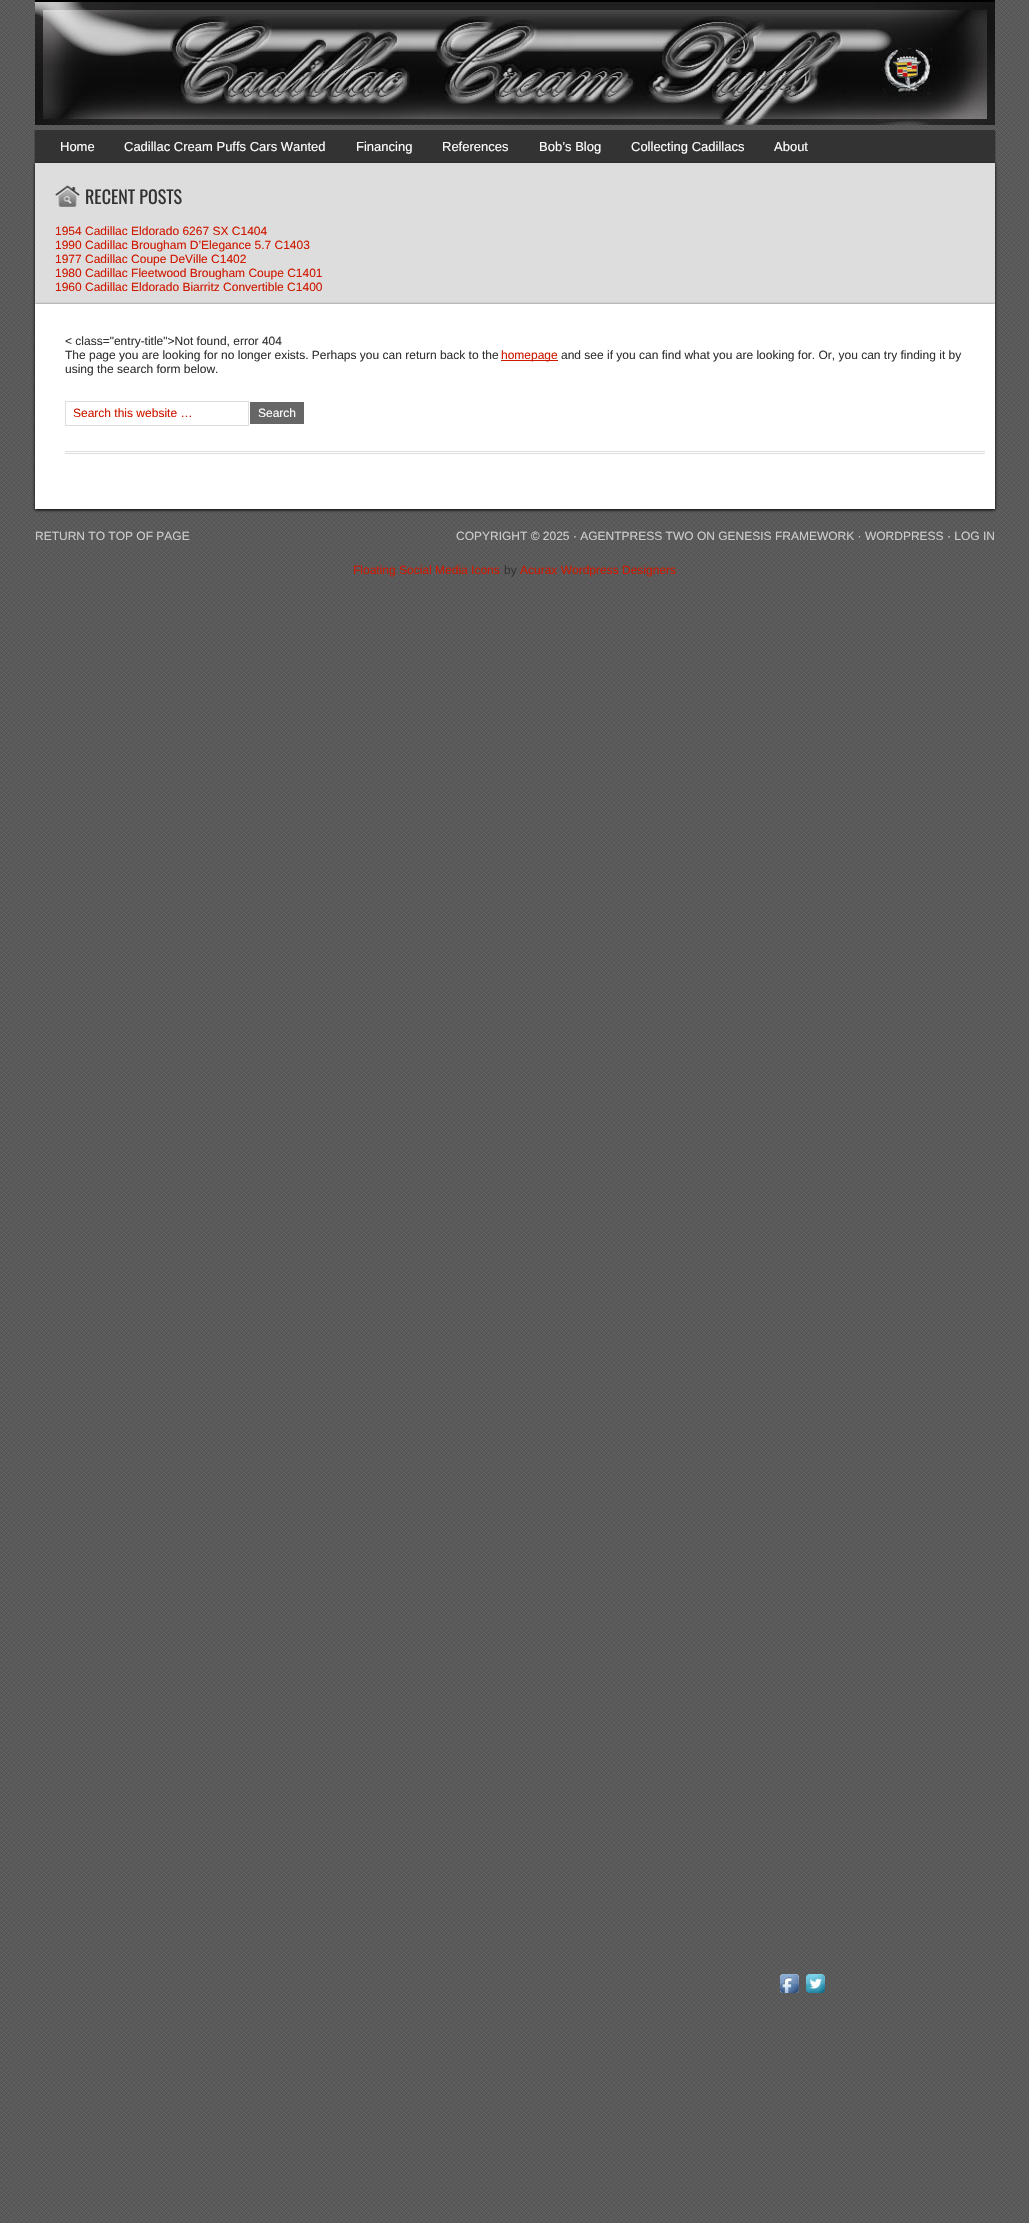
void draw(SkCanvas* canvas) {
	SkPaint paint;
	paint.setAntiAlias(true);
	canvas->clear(0xffffffff);
	canvas->drawImageRect(SkImages::DeferredFromEncodedData(SkData::MakeFromFileName("img1.png")), SkRect::MakeXYWH(0, 0, 1029, 2223), SkSamplingOptions());
	canvas->drawImageRect(SkImages::DeferredFromEncodedData(SkData::MakeFromFileName("img2.png")), SkRect::MakeXYWH(35, 0, 960, 125), SkSamplingOptions());
	paint.setColor(0xff000000);
	paint.setMaskFilter(SkMaskFilter::MakeBlur(kNormal_SkBlurStyle, 0.5));
	canvas->drawRect(SkRect::MakeXYWH(35, 131, 960, 33), paint);
	paint.setMaskFilter(nullptr);
	paint.setColor(0xff333333);
	canvas->drawRect(SkRect::MakeXYWH(35, 130, 960, 33), paint);
	SkFont f1(fontMgr->matchFamilyStyle("Liberation Sans", SkFontStyle::Normal()), 13);
	f1.setSubpixel(true);
	paint.setColor(0xffffffff);
	canvas->drawString("Home", 60, 151, f1, paint);
	canvas->drawString("Cadillac Cream Puffs Cars Wanted", 124, 151, f1, paint);
	canvas->drawString("Financing", 356, 151, f1, paint);
	canvas->drawString("References", 442, 151, f1, paint);
	canvas->drawString("Bob’s Blog", 539, 151, f1, paint);
	canvas->drawString("Collecting Cadillacs", 631, 151, f1, paint);
	canvas->drawString("About", 774, 151, f1, paint);
	paint.setColor(0xff000000);
	paint.setMaskFilter(SkMaskFilter::MakeBlur(kNormal_SkBlurStyle, 1.5));
	canvas->drawRect(SkRect::MakeXYWH(35, 164, 960, 141), paint);
	paint.setMaskFilter(nullptr);
	paint.setColor(0xffdddddd);
	canvas->drawRect(SkRect::MakeXYWH(35, 163, 960, 141), paint);
	canvas->drawImageRect(SkImages::DeferredFromEncodedData(SkData::MakeFromFileName("img3.png")), SkRect::MakeXYWH(55, 185, 25, 22), SkSamplingOptions());
	SkFont f2(fontMgr->matchFamilyStyle("Oswald", SkFontStyle::Normal()), 18);
	f2.setSubpixel(true);
	paint.setColor(0xff333333);
	canvas->drawString("RECENT POSTS", 85, 204, f2, paint);
	SkFont f3(fontMgr->matchFamilyStyle("Liberation Sans", SkFontStyle::Normal()), 12);
	f3.setSubpixel(true);
	paint.setColor(0xffcf1900);
	canvas->drawString("1954 Cadillac Eldorado 6267 SX C1404", 55, 235, f3, paint);
	canvas->drawString("1990 Cadillac Brougham D’Elegance 5.7 C1403", 55, 249, f3, paint);
	canvas->drawString("1977 Cadillac Coupe DeVille C1402", 55, 263, f3, paint);
	canvas->drawString("1980 Cadillac Fleetwood Brougham Coupe C1401", 55, 277, f3, paint);
	canvas->drawString("1960 Cadillac Eldorado Biarritz Convertible C1400", 55, 291, f3, paint);
	paint.setColor(0xff000000);
	paint.setMaskFilter(SkMaskFilter::MakeBlur(kNormal_SkBlurStyle, 1.5));
	canvas->drawRect(SkRect::MakeXYWH(35, 305, 960, 205), paint);
	paint.setMaskFilter(nullptr);
	paint.setColor(0xffffffff);
	canvas->drawRect(SkRect::MakeXYWH(35, 304, 960, 205), paint);
	paint.setColor(0xffdddddd);
	canvas->drawRect(SkRect::MakeXYWH(65, 451, 920, 1), paint);
	canvas->drawRect(SkRect::MakeXYWH(65, 453, 920, 1), paint);
	paint.setColor(0xff333333);
	canvas->drawString("< class=\"entry-title\">Not found, error 404", 65, 345, f3, paint);
	canvas->drawString("The page you are looking for no longer exists. Perhaps you can return back to the", 65, 359, f3, paint);
	paint.setColor(0xffcf1900);
	canvas->drawRect(SkRect::MakeXYWH(501, 360, 57, 1), paint);
	canvas->drawString("homepage", 501, 359, f3, paint);
	paint.setColor(0xff333333);
	canvas->drawString("and see if you can find what you are looking for. Or, you can try finding it by", 561, 359, f3, paint);
	canvas->drawString("using the search form below.", 65, 373, f3, paint);
	paint.setStroke(true);
	paint.setStrokeWidth(1);
	paint.setColor(0xffdddddd);
	canvas->drawRect(SkRect::MakeXYWH(65.5, 401.5, 183, 24), paint);
	paint.setStroke(false);
	paint.setColor(0xffcf1900);
	canvas->drawString("Search this website …", 73, 417, f3, paint);
	paint.setColor(0xff666666);
	canvas->drawRect(SkRect::MakeXYWH(250, 402, 54, 22), paint);
	paint.setColor(0xffffffff);
	canvas->drawString("Search", 258, 417, f3, paint);
	paint.setColor(0xffcccccc);
	canvas->drawString("RETURN TO TOP OF PAGE", 35, 540, f3, paint);
	canvas->drawString("COPYRIGHT © 2025 · AGENTPRESS TWO ON GENESIS FRAMEWORK · WORDPRESS · LOG IN", 456, 540, f3, paint);
	paint.setColor(0xffcf1900);
	canvas->drawString("Floating Social Media Icons", 353, 574, f3, paint);
	paint.setColor(0xff333333);
	canvas->drawString("by", 504, 574, f3, paint);
	paint.setColor(0xffcf1900);
	canvas->drawString("Acurax Wordpress Designers", 520, 574, f3, paint);
	canvas->drawImageRect(SkImages::DeferredFromEncodedData(SkData::MakeFromFileName("img4.png")), SkRect::MakeXYWH(780, 1974, 19, 19), SkSamplingOptions());
	canvas->drawImageRect(SkImages::DeferredFromEncodedData(SkData::MakeFromFileName("img5.png")), SkRect::MakeXYWH(806, 1974, 19, 19), SkSamplingOptions());
}
